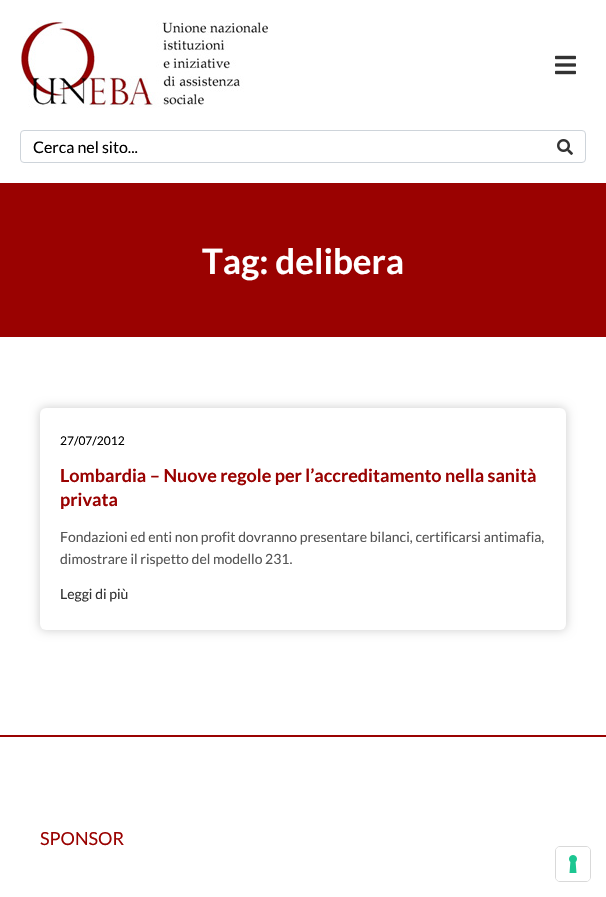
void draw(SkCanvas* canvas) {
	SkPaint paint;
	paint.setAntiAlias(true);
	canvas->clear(0xffffffff);
	canvas->drawImageRect(SkImages::DeferredFromEncodedData(SkData::MakeFromFileName("img1.png")), SkRect::MakeXYWH(20, 20, 248, 88), SkSamplingOptions());
	canvas->drawImageRect(SkImages::DeferredFromEncodedData(SkData::MakeFromFileName("img2.png")), SkRect::MakeXYWH(555, 55, 21, 20), SkSamplingOptions());
	paint.setStroke(true);
	paint.setStrokeWidth(1);
	paint.setColor(0xffced4da);
	canvas->drawRoundRect(SkRect::MakeXYWH(20.5, 130.5, 565, 32), 3.5, 3.5, paint);
	SkFont f1(fontMgr->matchFamilyStyle("Lato", SkFontStyle::Normal()), 16);
	f1.setSubpixel(true);
	paint.setStroke(false);
	paint.setColor(0xff000000);
	canvas->drawString("Cerca nel sito...", 33, 153, f1, paint);
	canvas->drawImageRect(SkImages::DeferredFromEncodedData(SkData::MakeFromFileName("img3.png")), SkRect::MakeXYWH(557, 139, 16, 16), SkSamplingOptions());
	paint.setColor(0xff9a0201);
	canvas->drawRect(SkRect::MakeXYWH(0, 183, 606, 154), paint);
	SkFont f2(fontMgr->matchFamilyStyle("Lato", SkFontStyle::Bold()), 35);
	f2.setSubpixel(true);
	paint.setColor(0xffffffff);
	canvas->drawString("Tag: delibera", 202, 274, f2, paint);
	paint.setColor(0x2b000000);
	paint.setMaskFilter(SkMaskFilter::MakeBlur(kNormal_SkBlurStyle, 5));
	canvas->drawRoundRect(SkRect::MakeXYWH(39, 407, 528, 224), 7, 7, paint);
	paint.setMaskFilter(nullptr);
	paint.setColor(0xffffffff);
	canvas->drawRoundRect(SkRect::MakeXYWH(40, 408, 526, 222), 6, 6, paint);
	SkFont f3(fontMgr->matchFamilyStyle("Lato", SkFontStyle::Normal()), 12);
	f3.setSubpixel(true);
	paint.setColor(0xff000000);
	canvas->drawString("27/07/2012", 60, 445, f3, paint);
	SkFont f4(fontMgr->matchFamilyStyle("Lato", SkFontStyle::Bold()), 18);
	f4.setSubpixel(true);
	paint.setColor(0xff9a0201);
	canvas->drawString("Lombardia – Nuove regole per l’accreditamento nella sanità", 60, 482, f4, paint);
	canvas->drawString("privata", 60, 506, f4, paint);
	SkFont f5(fontMgr->matchFamilyStyle("Lato", SkFontStyle::Normal()), 14);
	f5.setSubpixel(true);
	paint.setColor(0xff555555);
	canvas->drawString("Fondazioni ed enti non profit dovranno presentare bilanci, certificarsi antimafia,", 60, 542, f5, paint);
	canvas->drawString("dimostrare il rispetto del modello 231.", 60, 564, f5, paint);
	paint.setColor(0xff333333);
	canvas->drawString("Leggi di più", 60, 599, f5, paint);
	paint.setColor(0xff9a0201);
	canvas->drawRect(SkRect::MakeXYWH(0, 735, 606, 2), paint);
	SkFont f6(fontMgr->matchFamilyStyle("Lato", SkFontStyle::Normal()), 18);
	f6.setSubpixel(true);
	canvas->drawString("SPONSOR", 40, 845, f6, paint);
	paint.setStroke(true);
	paint.setColor(0xffd9d9d9);
	canvas->drawRoundRect(SkRect::MakeXYWH(555.5, 846.5, 35, 35), 4.5, 4.5, paint);
	paint.setStroke(false);
	paint.setColor(0xffffffff);
	canvas->drawRoundRect(SkRect::MakeXYWH(556, 847, 34, 34), 4, 4, paint);
	canvas->drawImageRect(SkImages::DeferredFromEncodedData(SkData::MakeFromFileName("img4.png")), SkRect::MakeXYWH(569, 855, 8, 18), SkSamplingOptions());
}
